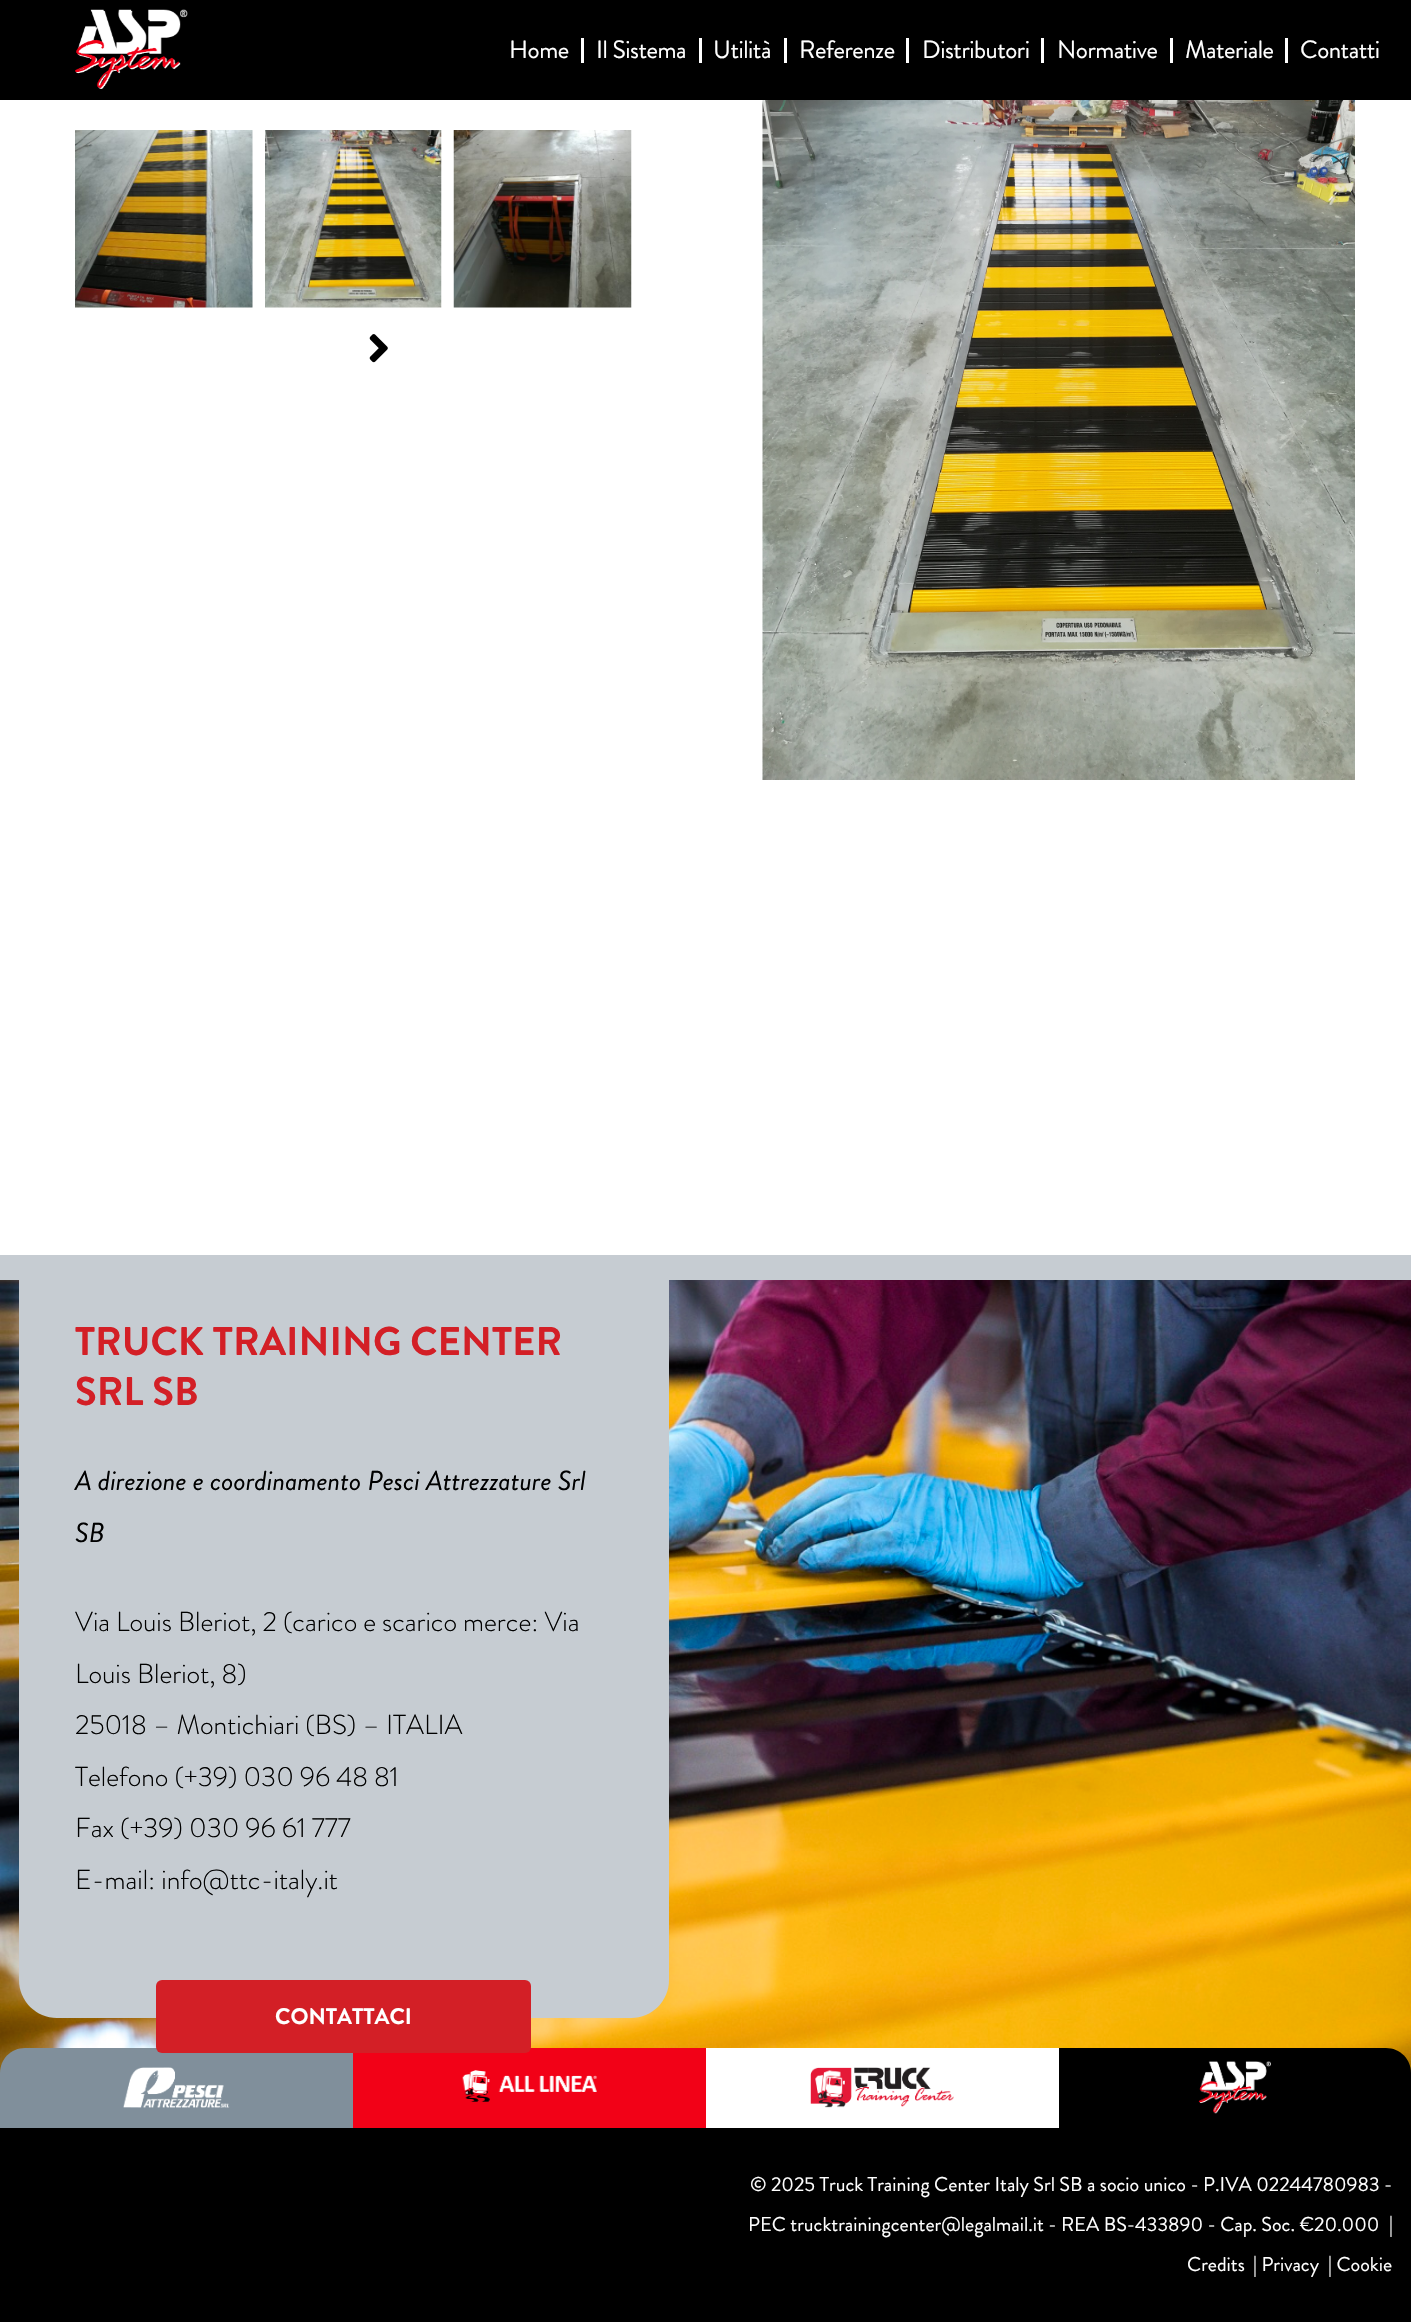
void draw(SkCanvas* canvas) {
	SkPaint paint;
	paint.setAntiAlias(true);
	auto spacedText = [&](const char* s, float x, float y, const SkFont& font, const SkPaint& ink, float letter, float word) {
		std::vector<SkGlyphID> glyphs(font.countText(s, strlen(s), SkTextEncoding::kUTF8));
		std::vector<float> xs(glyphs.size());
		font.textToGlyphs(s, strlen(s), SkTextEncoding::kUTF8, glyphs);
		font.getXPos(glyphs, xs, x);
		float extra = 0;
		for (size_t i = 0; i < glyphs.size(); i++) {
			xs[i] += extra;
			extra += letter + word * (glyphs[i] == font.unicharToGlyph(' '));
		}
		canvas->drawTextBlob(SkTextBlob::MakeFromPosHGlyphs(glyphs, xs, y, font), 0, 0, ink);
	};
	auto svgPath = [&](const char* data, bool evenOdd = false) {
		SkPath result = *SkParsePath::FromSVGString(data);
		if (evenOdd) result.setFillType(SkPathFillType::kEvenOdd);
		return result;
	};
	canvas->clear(0xffffffff);
	paint.setColor(0xff000000);
	canvas->drawRect(SkRect::MakeXYWH(0, 0, 1411, 100), paint);
	canvas->drawImageRect(SkImages::DeferredFromEncodedData(SkData::MakeFromFileName("img1.png")), SkRect::MakeXYWH(75, 9, 113, 80), SkSamplingOptions());
	SkFont f1(fontMgr->matchFamilyStyle("Brandon Grotesque", SkFontStyle::Normal()), 25);
	f1.setSubpixel(true);
	paint.setColor(0xffffffff);
	spacedText("Home", 509, 58, f1, paint, -0.5, 0);
	canvas->drawRect(SkRect::MakeXYWH(581, 38, 3, 25), paint);
	spacedText("Il Sistema", 596, 58, f1, paint, -0.5, 0);
	canvas->drawRect(SkRect::MakeXYWH(699, 38, 3, 25), paint);
	spacedText("Utilità", 713, 58, f1, paint, -0.5, 0);
	canvas->drawRect(SkRect::MakeXYWH(784, 38, 3, 25), paint);
	spacedText("Referenze", 799, 58, f1, paint, -0.5, 0);
	canvas->drawRect(SkRect::MakeXYWH(906, 38, 3, 25), paint);
	spacedText("Distributori", 922, 58, f1, paint, -0.5, 0);
	canvas->drawRect(SkRect::MakeXYWH(1041, 38, 3, 25), paint);
	spacedText("Normative", 1057, 58, f1, paint, -0.5, 0);
	canvas->drawRect(SkRect::MakeXYWH(1170, 38, 3, 25), paint);
	spacedText("Materiale", 1185, 58, f1, paint, -0.5, 0);
	canvas->drawRect(SkRect::MakeXYWH(1285, 38, 3, 25), paint);
	spacedText("Contatti", 1300, 58, f1, paint, -0.5, 0);
	canvas->drawImageRect(SkImages::DeferredFromEncodedData(SkData::MakeFromFileName("img2.png")), SkRect::MakeXYWH(75, 130, 178, 178), SkSamplingOptions());
	canvas->drawImageRect(SkImages::DeferredFromEncodedData(SkData::MakeFromFileName("img3.png")), SkRect::MakeXYWH(265, 130, 177, 178), SkSamplingOptions());
	canvas->drawImageRect(SkImages::DeferredFromEncodedData(SkData::MakeFromFileName("img4.png")), SkRect::MakeXYWH(453, 130, 179, 178), SkSamplingOptions());
	canvas->drawImageRect(SkImages::DeferredFromEncodedData(SkData::MakeFromFileName("img5.png")), SkRect::MakeXYWH(369, 334, 19, 29), SkSamplingOptions());
	canvas->drawImageRect(SkImages::DeferredFromEncodedData(SkData::MakeFromFileName("img6.png")), SkRect::MakeXYWH(762, 100, 593, 680), SkSamplingOptions());
	paint.setColor(0xffc6ccd2);
	canvas->drawRect(SkRect::MakeXYWH(0, 1255, 1411, 25), paint);
	canvas->drawImageRect(SkImages::DeferredFromEncodedData(SkData::MakeFromFileName("img7.png")), SkRect::MakeXYWH(0, 1280, 1411, 793), SkSamplingOptions());
	canvas->drawPath(svgPath("M19 1280H669V1980C669 2001 652 2018 631 2018H57C36 2018 19 2001 19 1980Z"), paint);
	SkFont f2(fontMgr->matchFamilyStyle("Brandon Grotesque", SkFontStyle::Bold()), 40);
	f2.setSubpixel(true);
	paint.setColor(0xffd31f26);
	canvas->drawString("TRUCK TRAINING CENTER", 75, 1355, f2, paint);
	canvas->drawString("SRL SB", 75, 1405, f2, paint);
	SkFont f3(fontMgr->matchFamilyStyle("Brandon Grotesque", SkFontStyle::Italic()), 27.5);
	f3.setSubpixel(true);
	paint.setColor(0xff000000);
	canvas->drawString("A direzione e coordinamento Pesci Attrezzature Srl", 75, 1490, f3, paint);
	canvas->drawString("SB", 75, 1542, f3, paint);
	SkFont f4(fontMgr->matchFamilyStyle("Brandon Grotesque", SkFontStyle(300, SkFontStyle::kNormal_Width, SkFontStyle::kUpright_Slant)), 27.5);
	f4.setSubpixel(true);
	canvas->drawString("Via Louis Bleriot, 2 (carico e scarico merce: Via", 75, 1631, f4, paint);
	canvas->drawString("Louis Bleriot, 8)", 75, 1683, f4, paint);
	canvas->drawString("25018 – Montichiari (BS) – ITALIA", 75, 1734, f4, paint);
	canvas->drawString("Telefono (+39) 030 96 48 81", 75, 1786, f4, paint);
	canvas->drawString("Fax (+39) 030 96 61 777", 75, 1837, f4, paint);
	canvas->drawString("E-mail: info@ttc-italy.it", 75, 1889, f4, paint);
	paint.setColor(0xff808f9b);
	canvas->drawPath(svgPath("M25 2048H353V2128H0V2073C0 2059 11 2048 25 2048Z"), paint);
	paint.setColor(0xfff20117);
	canvas->drawRect(SkRect::MakeXYWH(353, 2048, 353, 80), paint);
	paint.setColor(0xffd31f26);
	canvas->drawRoundRect(SkRect::MakeXYWH(156, 1980, 375, 73), 6, 6, paint);
	SkFont f5(fontMgr->matchFamilyStyle("Brandon Grotesque", SkFontStyle::Bold()), 22.5);
	f5.setSubpixel(true);
	paint.setColor(0xffffffff);
	canvas->drawString("CONTATTACI", 275, 2024, f5, paint);
	canvas->drawImageRect(SkImages::DeferredFromEncodedData(SkData::MakeFromFileName("img8.png")), SkRect::MakeXYWH(123, 2067, 107, 41), SkSamplingOptions());
	canvas->drawImageRect(SkImages::DeferredFromEncodedData(SkData::MakeFromFileName("img9.png")), SkRect::MakeXYWH(462, 2070, 135, 32), SkSamplingOptions());
	canvas->drawRect(SkRect::MakeXYWH(706, 2048, 353, 25), paint);
	canvas->drawImageRect(SkImages::DeferredFromEncodedData(SkData::MakeFromFileName("img10.png")), SkRect::MakeXYWH(810, 2067, 144, 41), SkSamplingOptions());
	paint.setColor(0xff000000);
	canvas->drawPath(svgPath("M1059 2048H1386C1400 2048 1411 2059 1411 2073V2128H1059Z"), paint);
	canvas->drawImageRect(SkImages::DeferredFromEncodedData(SkData::MakeFromFileName("img11.png")), SkRect::MakeXYWH(1198, 2061, 73, 53), SkSamplingOptions());
	canvas->drawRect(SkRect::MakeXYWH(0, 2128, 1411, 194), paint);
	SkFont f6(fontMgr->matchFamilyStyle("Brandon Grotesque", SkFontStyle::Normal()), 20);
	f6.setSubpixel(true);
	paint.setColor(0xffffffff);
	canvas->drawString("© 2025 Truck Training Center Italy Srl SB a socio unico - P.IVA 02244780983 -", 750, 2191, f6, paint);
	canvas->drawString("PEC trucktrainingcenter@legalmail.it - REA BS-433890 - Cap. Soc. €20.000", 748, 2231, f6, paint);
	canvas->drawString("|", 1389, 2231, f6, paint);
	canvas->drawString("Credits", 1187, 2271, f6, paint);
	canvas->drawString("| Privacy", 1253, 2271, f6, paint);
	canvas->drawString("| Cookie", 1328, 2271, f6, paint);
}
